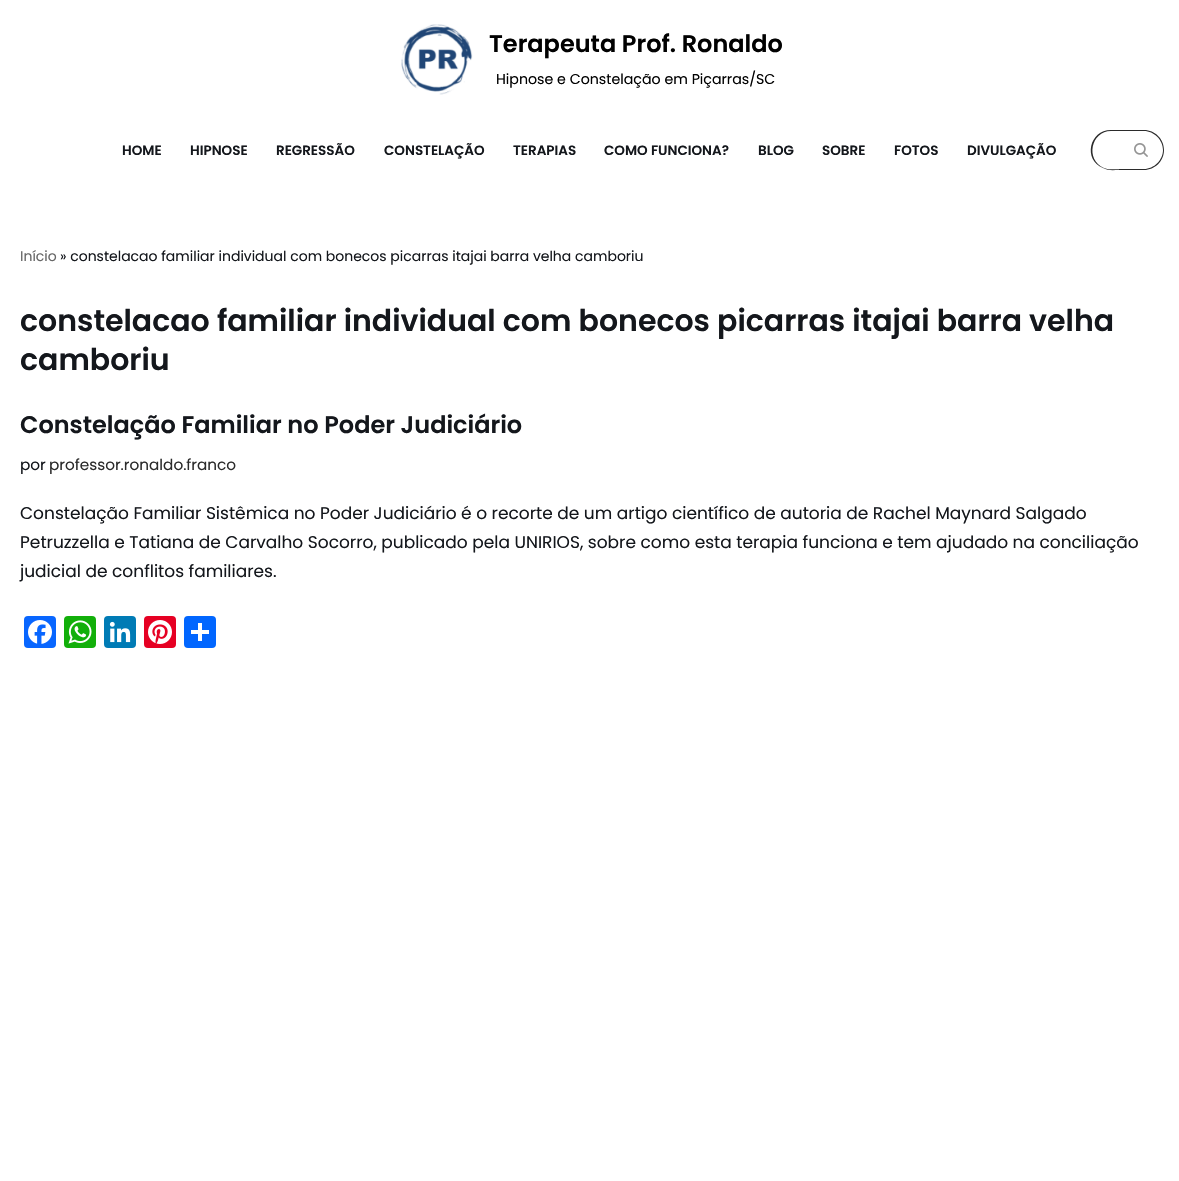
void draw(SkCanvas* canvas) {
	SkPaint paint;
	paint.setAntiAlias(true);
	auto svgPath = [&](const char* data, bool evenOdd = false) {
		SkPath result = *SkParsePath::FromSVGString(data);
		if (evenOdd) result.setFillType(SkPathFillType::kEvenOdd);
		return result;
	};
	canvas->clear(0xffffffff);
	canvas->drawImageRect(SkImages::DeferredFromEncodedData(SkData::MakeFromFileName("img1.png")), SkRect::MakeXYWH(401, 24, 72, 71), SkSamplingOptions());
	SkFont f1(fontMgr->matchFamilyStyle("Poppins", SkFontStyle(600, SkFontStyle::kNormal_Width, SkFontStyle::kUpright_Slant)), 24);
	f1.setSubpixel(true);
	paint.setColor(0xff010101);
	canvas->drawString("Terapeuta Prof. Ronaldo", 489, 52, f1, paint);
	SkFont f2(fontMgr->matchFamilyStyle("Poppins", SkFontStyle::Normal()), 14.2);
	f2.setSubpixel(true);
	canvas->drawString("Hipnose e Constelação em Piçarras/SC", 496, 84, f2, paint);
	SkFont f3(fontMgr->matchFamilyStyle("Poppins", SkFontStyle(600, SkFontStyle::kNormal_Width, SkFontStyle::kUpright_Slant)), 13.5);
	f3.setSubpixel(true);
	paint.setColor(0xff14171c);
	canvas->drawString("HOME", 122, 155, f3, paint);
	canvas->drawString("HIPNOSE", 190, 155, f3, paint);
	canvas->drawString("REGRESSÃO", 276, 155, f3, paint);
	canvas->drawString("CONSTELAÇÃO", 384, 155, f3, paint);
	canvas->drawString("TERAPIAS", 513, 155, f3, paint);
	canvas->drawString("COMO FUNCIONA?", 604, 155, f3, paint);
	canvas->drawString("BLOG", 758, 155, f3, paint);
	canvas->drawString("SOBRE", 822, 155, f3, paint);
	canvas->drawString("FOTOS", 894, 155, f3, paint);
	canvas->drawString("DIVULGAÇÃO", 967, 155, f3, paint);
	paint.setColor(0xff2b2b2b);
	canvas->drawPath(svgPath("M1111 130H1119V170C1114 170 1108 171 1103 168C1083 160 1089 130 1111 130ZM1111 131H1119V169C1114 169 1108 170 1104 168C1085 160 1091 131 1111 131Z", true), paint);
	canvas->drawPath(svgPath("M1119 130H1144C1155 130 1164 139 1164 150C1164 161 1155 170 1144 170H1119ZM1119 131H1144C1154 131 1163 140 1163 150C1163 160 1154 169 1144 169H1119Z", true), paint);
	canvas->drawImageRect(SkImages::DeferredFromEncodedData(SkData::MakeFromFileName("img2.png")), SkRect::MakeXYWH(1134, 143, 14, 14), SkSamplingOptions());
	SkFont f4(fontMgr->matchFamilyStyle("Poppins", SkFontStyle::Normal()), 14);
	f4.setSubpixel(true);
	paint.setColor(0xff676767);
	canvas->drawString("Início", 20, 261, f4, paint);
	paint.setColor(0xff14171c);
	canvas->drawString("» constelacao familiar individual com bonecos picarras itajai barra velha camboriu", 60, 261, f4, paint);
	SkFont f5(fontMgr->matchFamilyStyle("Poppins", SkFontStyle(600, SkFontStyle::kNormal_Width, SkFontStyle::kUpright_Slant)), 30);
	f5.setSubpixel(true);
	canvas->drawString("constelacao familiar individual com bonecos picarras itajai barra velha", 20, 331, f5, paint);
	canvas->drawString("camboriu", 20, 370, f5, paint);
	canvas->drawString("Constelação Familiar no Poder Judiciário", 20, 433, f1, paint);
	SkFont f6(fontMgr->matchFamilyStyle("Poppins", SkFontStyle::Normal()), 15.25);
	f6.setSubpixel(true);
	canvas->drawString("por", 20, 470, f6, paint);
	paint.setColor(0xff2b2b2b);
	canvas->drawString("professor.ronaldo.franco", 49, 470, f6, paint);
	SkFont f7(fontMgr->matchFamilyStyle("Poppins", SkFontStyle::Normal()), 17);
	f7.setSubpixel(true);
	paint.setColor(0xff14171c);
	canvas->drawString("Constelação Familiar Sistêmica no Poder Judiciário é o recorte de um artigo científico de autoria de Rachel Maynard Salgado", 20, 519, f7, paint);
	canvas->drawString("Petruzzella e Tatiana de Carvalho Socorro, publicado pela UNIRIOS, sobre como esta terapia funciona e tem ajudado na conciliação", 20, 548, f7, paint);
	canvas->drawString("judicial de conflitos familiares.", 20, 577, f7, paint);
	paint.setColor(0xff0866ff);
	canvas->drawRoundRect(SkRect::MakeXYWH(24, 616, 32, 32), 4, 4, paint);
	canvas->drawImageRect(SkImages::DeferredFromEncodedData(SkData::MakeFromFileName("img3.png")), SkRect::MakeXYWH(28, 620, 24, 24), SkSamplingOptions());
	paint.setColor(0xff12af0a);
	canvas->drawRoundRect(SkRect::MakeXYWH(64, 616, 32, 32), 4, 4, paint);
	canvas->drawImageRect(SkImages::DeferredFromEncodedData(SkData::MakeFromFileName("img4.png")), SkRect::MakeXYWH(68, 620, 24, 24), SkSamplingOptions());
	paint.setColor(0xff007bb5);
	canvas->drawRoundRect(SkRect::MakeXYWH(104, 616, 32, 32), 4, 4, paint);
	canvas->drawImageRect(SkImages::DeferredFromEncodedData(SkData::MakeFromFileName("img5.png")), SkRect::MakeXYWH(109, 621, 22, 22), SkSamplingOptions());
	paint.setColor(0xffe60023);
	canvas->drawRoundRect(SkRect::MakeXYWH(144, 616, 32, 32), 4, 4, paint);
	canvas->drawImageRect(SkImages::DeferredFromEncodedData(SkData::MakeFromFileName("img6.png")), SkRect::MakeXYWH(148, 620, 24, 24), SkSamplingOptions());
	paint.setColor(0xff0166ff);
	canvas->drawRoundRect(SkRect::MakeXYWH(184, 616, 32, 32), 4, 4, paint);
	paint.setColor(0xffffffff);
	canvas->drawRect(SkRect::MakeXYWH(198, 623, 4, 18), paint);
	canvas->drawRect(SkRect::MakeXYWH(191, 630, 18, 4), paint);
}
